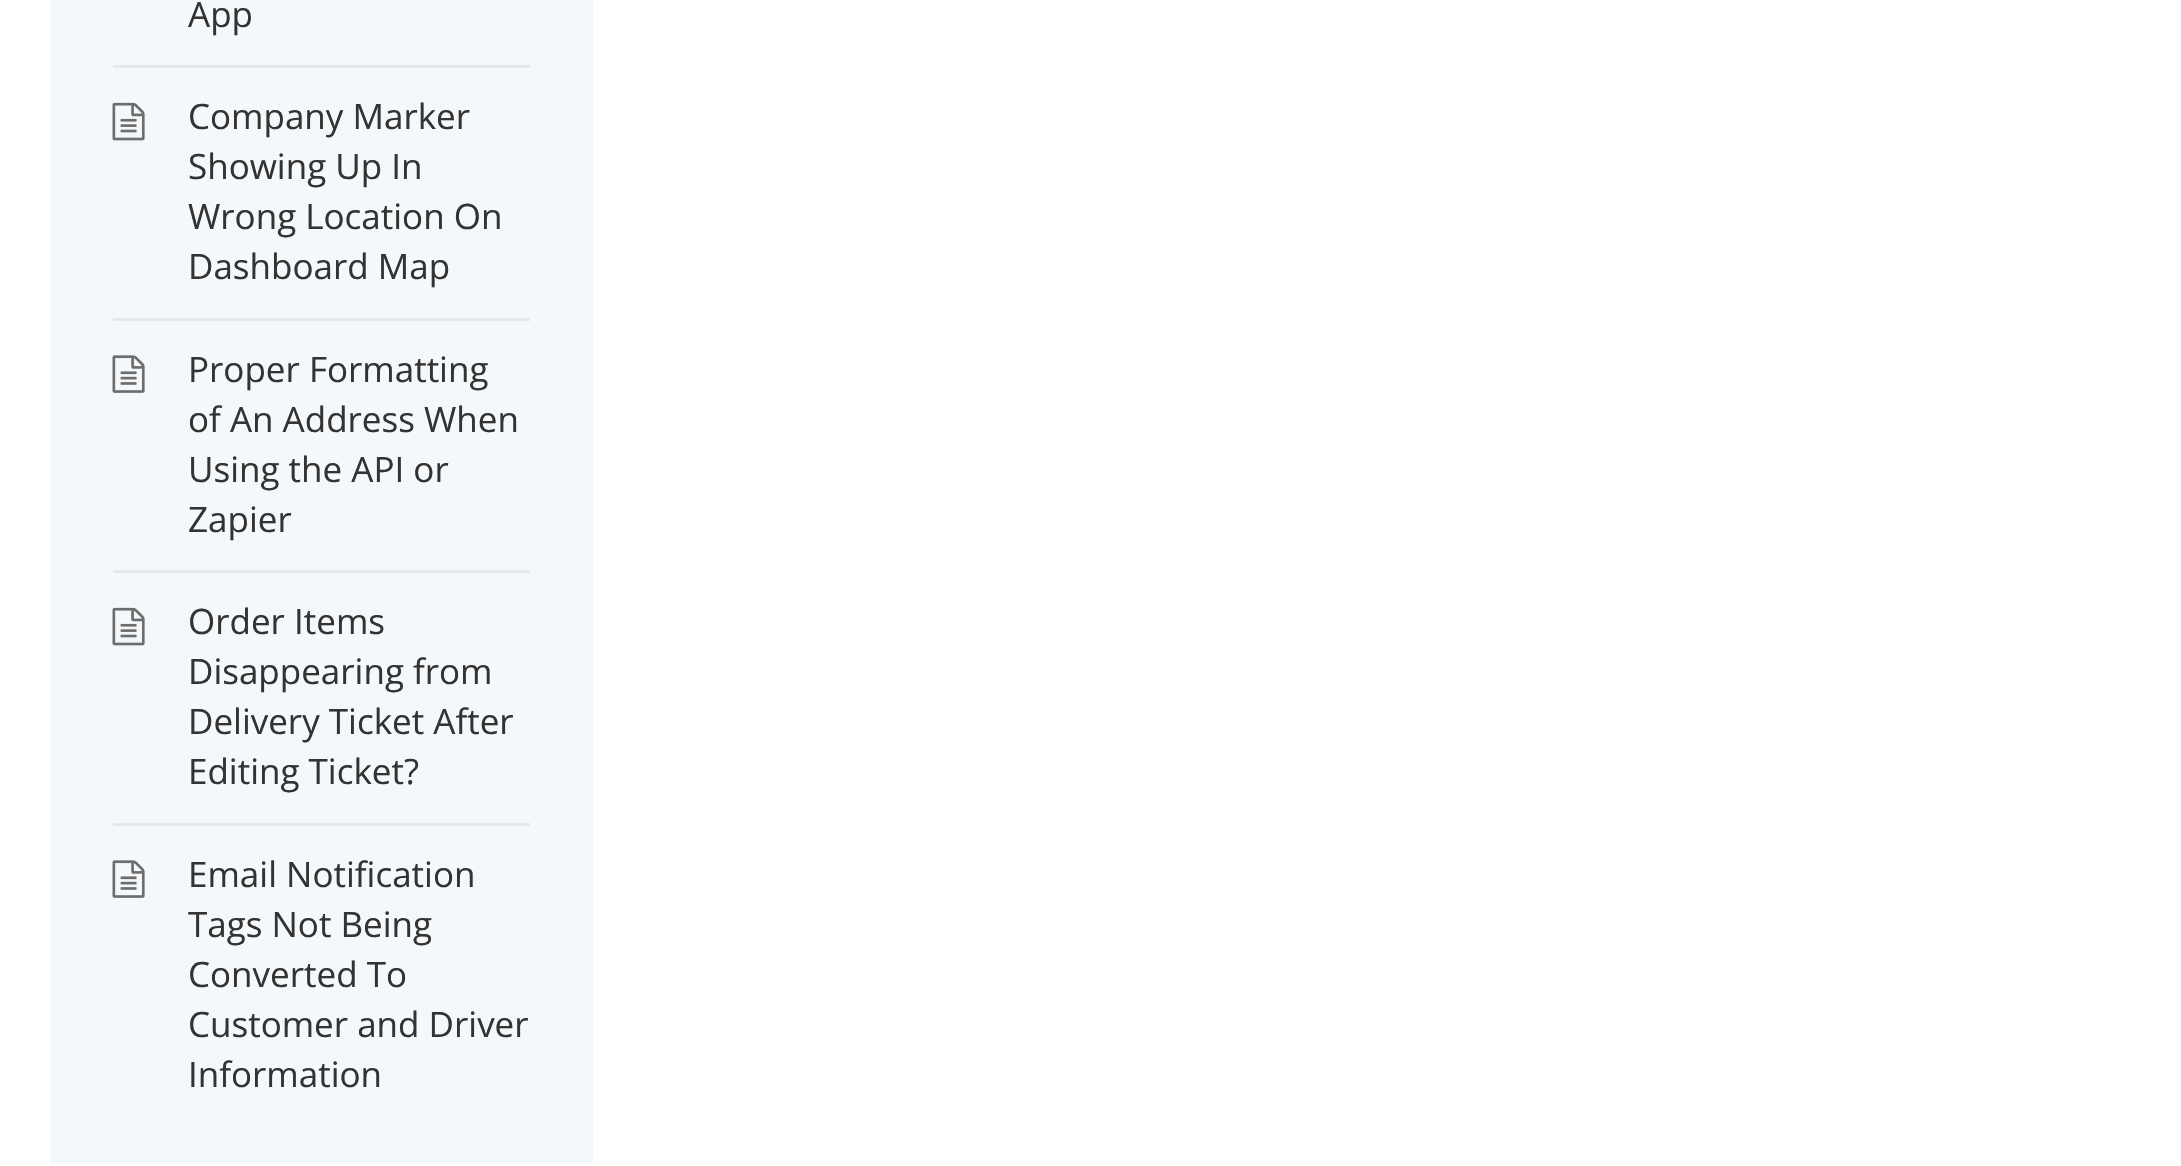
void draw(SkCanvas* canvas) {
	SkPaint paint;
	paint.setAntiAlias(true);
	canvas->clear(0xffffffff);
	paint.setColor(0xfff5f8fa);
	canvas->drawRect(SkRect::MakeXYWH(50, 0, 543, 1163), paint);
	paint.setColor(0xffe5e7e9);
	canvas->drawRect(SkRect::MakeXYWH(113, 65, 417, 3), paint);
	SkFont f1(fontMgr->matchFamilyStyle("Open Sans", SkFontStyle::Normal()), 35);
	f1.setSubpixel(true);
	paint.setColor(0xff333333);
	canvas->drawString("App", 188, 27, f1, paint);
	paint.setColor(0xffe5e7e9);
	canvas->drawRect(SkRect::MakeXYWH(113, 318, 417, 3), paint);
	canvas->drawImageRect(SkImages::DeferredFromEncodedData(SkData::MakeFromFileName("img1.png")), SkRect::MakeXYWH(112, 102, 33, 39), SkSamplingOptions());
	paint.setColor(0xff333333);
	canvas->drawString("Company Marker", 188, 129, f1, paint);
	canvas->drawString("Showing Up In", 188, 179, f1, paint);
	canvas->drawString("Wrong Location On", 188, 229, f1, paint);
	canvas->drawString("Dashboard Map", 188, 279, f1, paint);
	paint.setColor(0xffe5e7e9);
	canvas->drawRect(SkRect::MakeXYWH(113, 570, 417, 3), paint);
	canvas->drawImageRect(SkImages::DeferredFromEncodedData(SkData::MakeFromFileName("img2.png")), SkRect::MakeXYWH(112, 355, 33, 38), SkSamplingOptions());
	paint.setColor(0xff333333);
	canvas->drawString("Proper Formatting", 188, 382, f1, paint);
	canvas->drawString("of An Address When", 188, 432, f1, paint);
	canvas->drawString("Using the API or", 188, 482, f1, paint);
	canvas->drawString("Zapier", 188, 532, f1, paint);
	paint.setColor(0xffe5e7e9);
	canvas->drawRect(SkRect::MakeXYWH(113, 823, 417, 3), paint);
	canvas->drawImageRect(SkImages::DeferredFromEncodedData(SkData::MakeFromFileName("img1.png")), SkRect::MakeXYWH(112, 607, 33, 39), SkSamplingOptions());
	paint.setColor(0xff333333);
	canvas->drawString("Order Items", 188, 634, f1, paint);
	canvas->drawString("Disappearing from", 188, 684, f1, paint);
	canvas->drawString("Delivery Ticket After", 188, 734, f1, paint);
	canvas->drawString("Editing Ticket?", 188, 784, f1, paint);
	canvas->drawImageRect(SkImages::DeferredFromEncodedData(SkData::MakeFromFileName("img2.png")), SkRect::MakeXYWH(112, 860, 33, 38), SkSamplingOptions());
	canvas->drawString("Email Notification", 188, 887, f1, paint);
	canvas->drawString("Tags Not Being", 188, 937, f1, paint);
	canvas->drawString("Converted To", 188, 987, f1, paint);
	canvas->drawString("Customer and Driver", 188, 1037, f1, paint);
	canvas->drawString("Information", 188, 1087, f1, paint);
}
